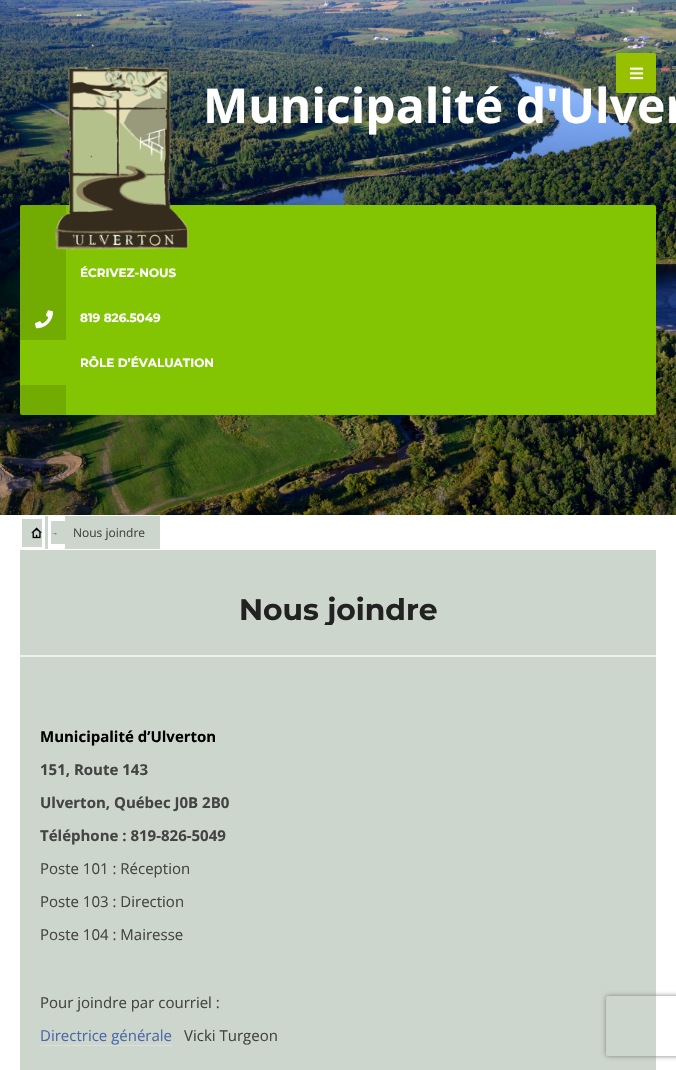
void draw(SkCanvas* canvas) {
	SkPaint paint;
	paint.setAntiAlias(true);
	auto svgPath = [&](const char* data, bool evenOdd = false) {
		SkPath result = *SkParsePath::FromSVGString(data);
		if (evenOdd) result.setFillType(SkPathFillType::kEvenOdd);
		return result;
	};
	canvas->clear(0xffffffff);
	canvas->drawImageRect(SkImages::DeferredFromEncodedData(SkData::MakeFromFileName("img1.png")), SkRect::MakeXYWH(0, 0, 676, 515), SkSamplingOptions());
	SkFont f1(fontMgr->matchFamilyStyle("Open Sans", SkFontStyle::Bold()), 48);
	f1.setSubpixel(true);
	paint.setColor(0xffffffff);
	canvas->drawString("Municipalité d'Ulver", 203, 123, f1, paint);
	paint.setColor(0xff83c502);
	canvas->drawRoundRect(SkRect::MakeXYWH(20, 205, 636, 210), 2, 2, paint);
	paint.setColor(0x21000000);
	canvas->drawRect(SkRect::MakeXYWH(20, 205, 46, 45), paint);
	canvas->drawImageRect(SkImages::DeferredFromEncodedData(SkData::MakeFromFileName("img2.png")), SkRect::MakeXYWH(55, 67, 134, 183), SkSamplingOptions());
	paint.setColor(0xff97c100);
	canvas->drawRoundRect(SkRect::MakeXYWH(616, 53, 40, 40), 2, 2, paint);
	canvas->drawImageRect(SkImages::DeferredFromEncodedData(SkData::MakeFromFileName("img3.png")), SkRect::MakeXYWH(630, 67, 14, 13), SkSamplingOptions());
	paint.setColor(0xff72ab02);
	canvas->drawRect(SkRect::MakeXYWH(20, 250, 46, 90), paint);
	SkFont f2(fontMgr->matchFamilyStyle("Montserrat", SkFontStyle::Bold()), 12);
	f2.setSubpixel(true);
	paint.setColor(0xffffffff);
	canvas->drawString("ÉCRIVEZ-NOUS", 80, 277, f2, paint);
	canvas->drawImageRect(SkImages::DeferredFromEncodedData(SkData::MakeFromFileName("img4.png")), SkRect::MakeXYWH(35, 310, 18, 19), SkSamplingOptions());
	canvas->drawString("819 826.5049", 80, 322, f2, paint);
	canvas->drawString("RÔLE D’ÉVALUATION", 80, 367, f2, paint);
	paint.setColor(0x21000000);
	canvas->drawRect(SkRect::MakeXYWH(20, 385, 46, 30), paint);
	paint.setColor(0xffcdd6cd);
	canvas->drawRect(SkRect::MakeXYWH(22, 519, 20, 28), paint);
	canvas->drawRect(SkRect::MakeXYWH(45, 516, 3, 33), paint);
	canvas->drawRect(SkRect::MakeXYWH(51, 521, 14, 23), paint);
	canvas->drawImageRect(SkImages::DeferredFromEncodedData(SkData::MakeFromFileName("img5.png")), SkRect::MakeXYWH(31, 527, 11, 12), SkSamplingOptions());
	SkFont f3(fontMgr->matchFamilyStyle("Liberation Serif", SkFontStyle::Normal()), 7);
	f3.setSubpixel(true);
	paint.setColor(0xff444444);
	canvas->drawString("→", 51, 535, f3, paint);
	paint.setColor(0xffcdd6cd);
	canvas->drawRect(SkRect::MakeXYWH(65, 516, 95, 33), paint);
	SkFont f4(fontMgr->matchFamilyStyle("Open Sans", SkFontStyle::Normal()), 12);
	f4.setSubpixel(true);
	paint.setColor(0xff444444);
	canvas->drawString("Nous joindre", 73, 537, f4, paint);
	paint.setColor(0xffcdd6cd);
	canvas->drawRect(SkRect::MakeXYWH(20, 550, 636, 520), paint);
	canvas->save();
	canvas->clipRect(SkRect::MakeXYWH(20, 595, 636, 30));
	SkFont f5(fontMgr->matchFamilyStyle("Montserrat", SkFontStyle::Bold()), 29.75);
	f5.setSubpixel(true);
	paint.setColor(0xff222222);
	canvas->drawString("Nous joindre", 239, 620, f5, paint);
	canvas->restore();
	paint.setColor(0xffefefef);
	canvas->drawRect(SkRect::MakeXYWH(20, 655, 636, 2), paint);
	SkFont f6(fontMgr->matchFamilyStyle("Open Sans", SkFontStyle::Bold()), 15);
	f6.setSubpixel(true);
	paint.setColor(0xff000000);
	canvas->drawString("Municipalité d’Ulverton", 40, 742, f6, paint);
	paint.setColor(0xff444444);
	canvas->drawString("151, Route 143", 40, 775, f6, paint);
	canvas->drawString("Ulverton, Québec J0B 2B0", 40, 808, f6, paint);
	canvas->drawString("Téléphone : 819-826-5049", 40, 841, f6, paint);
	SkFont f7(fontMgr->matchFamilyStyle("Open Sans", SkFontStyle::Normal()), 15);
	f7.setSubpixel(true);
	canvas->drawString("Poste 101 : Réception", 40, 874, f7, paint);
	canvas->drawString("Poste 103 : Direction", 40, 907, f7, paint);
	canvas->drawString("Poste 104 : Mairesse", 40, 940, f7, paint);
	canvas->drawString("Pour joindre par courriel :", 40, 1008, f7, paint);
	paint.setColor(0xff4b69a8);
	canvas->drawString("Directrice générale", 40, 1041, f7, paint);
	paint.setColor(0xffdddddd);
	canvas->drawRect(SkRect::MakeXYWH(40, 1045, 132, 1), paint);
	paint.setColor(0xff444444);
	canvas->drawString("Vicki Turgeon", 184, 1041, f7, paint);
	canvas->save();
	canvas->clipPath(svgPath("M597 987H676V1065H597ZM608 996H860C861 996 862 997 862 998V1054C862 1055 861 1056 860 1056H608C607 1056 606 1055 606 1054V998C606 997 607 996 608 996Z", true), true);
	paint.setColor(0xff808080);
	paint.setMaskFilter(SkMaskFilter::MakeBlur(kNormal_SkBlurStyle, 2.5));
	canvas->drawRoundRect(SkRect::MakeXYWH(606, 996, 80, 60), 2, 2, paint);
	paint.setMaskFilter(nullptr);
	canvas->restore();
}
